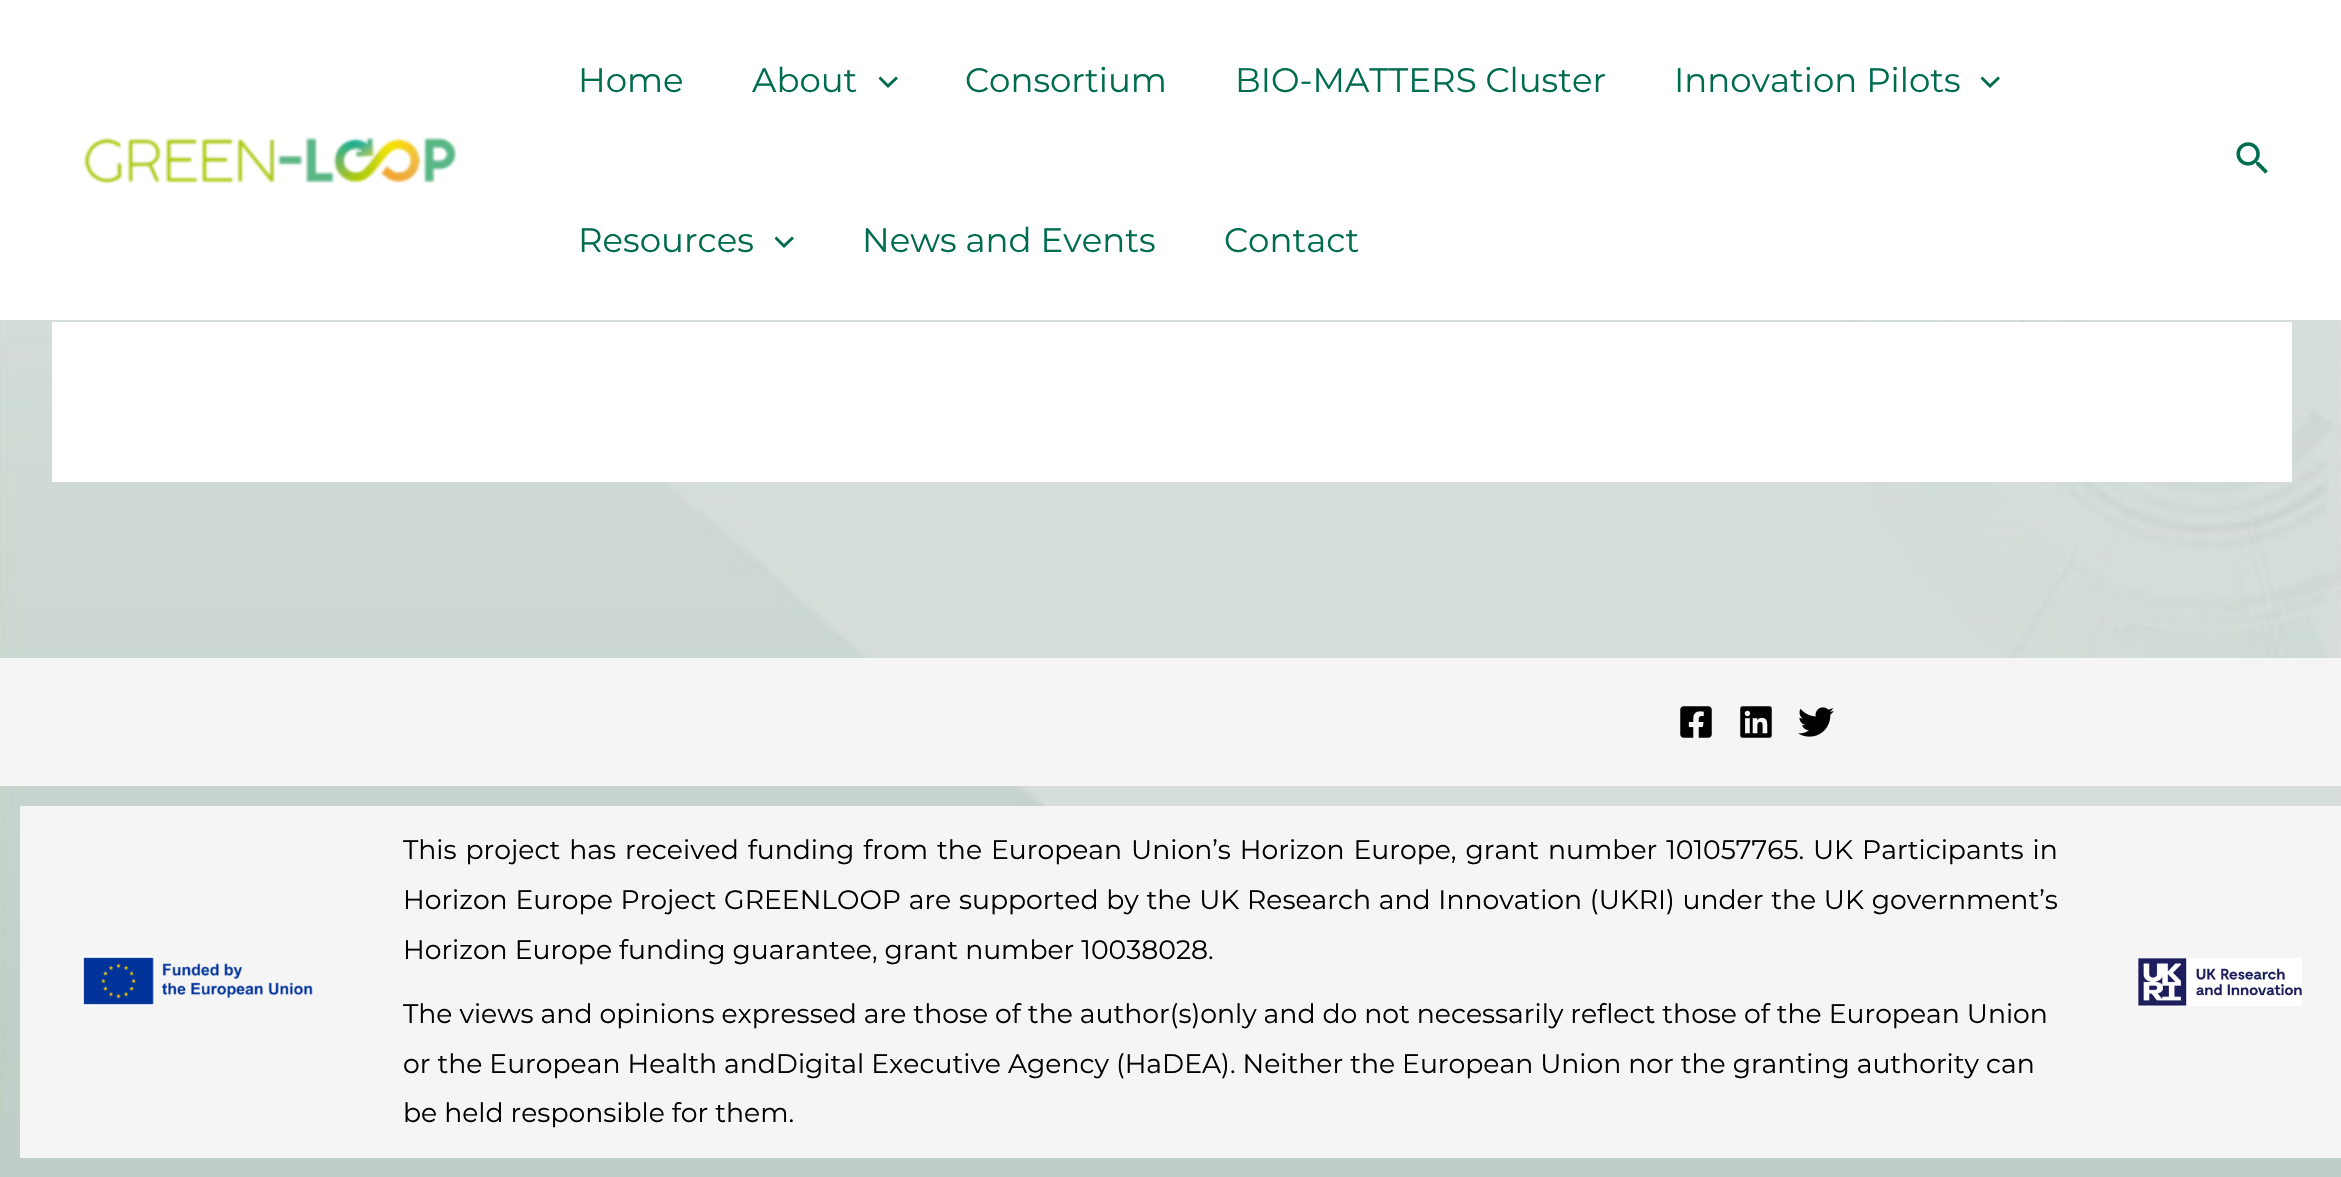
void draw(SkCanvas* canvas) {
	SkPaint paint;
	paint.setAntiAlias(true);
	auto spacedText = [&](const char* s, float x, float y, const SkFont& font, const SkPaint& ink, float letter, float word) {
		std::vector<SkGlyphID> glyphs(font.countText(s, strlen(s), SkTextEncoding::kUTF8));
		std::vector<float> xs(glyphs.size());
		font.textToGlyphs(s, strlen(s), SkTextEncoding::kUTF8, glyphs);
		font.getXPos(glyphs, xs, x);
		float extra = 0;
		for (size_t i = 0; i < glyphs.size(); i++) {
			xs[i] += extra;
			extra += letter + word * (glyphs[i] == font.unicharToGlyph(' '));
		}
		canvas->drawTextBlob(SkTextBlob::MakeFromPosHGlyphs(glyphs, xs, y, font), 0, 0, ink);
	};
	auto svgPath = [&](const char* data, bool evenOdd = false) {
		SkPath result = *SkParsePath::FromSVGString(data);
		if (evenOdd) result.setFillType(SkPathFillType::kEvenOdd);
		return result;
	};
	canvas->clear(0xffbfcfc8);
	canvas->drawImageRect(SkImages::DeferredFromEncodedData(SkData::MakeFromFileName("img1.png")), SkRect::MakeXYWH(0, 320, 2341, 796), SkSamplingOptions());
	paint.setColor(0xffffffff);
	canvas->drawRect(SkRect::MakeXYWH(0, 0, 2341, 320), paint);
	canvas->drawImageRect(SkImages::DeferredFromEncodedData(SkData::MakeFromFileName("img2.png")), SkRect::MakeXYWH(83, 137, 374, 48), SkSamplingOptions());
	SkFont f1(fontMgr->matchFamilyStyle("Montserrat", SkFontStyle::Normal()), 34);
	f1.setSubpixel(true);
	paint.setColor(0xff006c4f);
	canvas->drawString("Home", 578, 92, f1, paint);
	canvas->drawString("About", 752, 92, f1, paint);
	canvas->drawPath(svgPath("M878.5 78.5L888 88L898 78.5L896 76.5L888 84L880.5 76.5Z"), paint);
	canvas->drawString("Consortium", 965, 92, f1, paint);
	canvas->drawString("BIO-MATTERS Cluster", 1235, 92, f1, paint);
	canvas->drawString("Innovation Pilots", 1674, 92, f1, paint);
	canvas->drawPath(svgPath("M1980.5 78.5L1990 88L2000 78.5L1998 76.5L1990 84L1982.5 76.5Z"), paint);
	canvas->drawString("Resources", 578, 252, f1, paint);
	canvas->drawPath(svgPath("M774.5 238.5L784 248L794 238.5L792 236.5L784 244L776.5 236.5Z"), paint);
	canvas->drawString("News and Events", 862, 252, f1, paint);
	canvas->drawString("Contact", 1224, 252, f1, paint);
	canvas->drawImageRect(SkImages::DeferredFromEncodedData(SkData::MakeFromFileName("img3.png")), SkRect::MakeXYWH(2236, 142, 32, 32), SkSamplingOptions());
	paint.setColor(0xffffffff);
	canvas->drawRect(SkRect::MakeXYWH(52, 322, 2240, 160), paint);
	paint.setColor(0xfff5f5f5);
	canvas->drawRect(SkRect::MakeXYWH(0, 658, 2341, 128), paint);
	canvas->drawImageRect(SkImages::DeferredFromEncodedData(SkData::MakeFromFileName("img4.png")), SkRect::MakeXYWH(1680, 706, 32, 32), SkSamplingOptions());
	canvas->drawImageRect(SkImages::DeferredFromEncodedData(SkData::MakeFromFileName("img5.png")), SkRect::MakeXYWH(1740, 706, 32, 32), SkSamplingOptions());
	canvas->drawImageRect(SkImages::DeferredFromEncodedData(SkData::MakeFromFileName("img6.png")), SkRect::MakeXYWH(1798, 707, 36, 30), SkSamplingOptions());
	canvas->drawRect(SkRect::MakeXYWH(20, 806, 2321, 352), paint);
	canvas->drawImageRect(SkImages::DeferredFromEncodedData(SkData::MakeFromFileName("img7.png")), SkRect::MakeXYWH(82, 956, 231, 50), SkSamplingOptions());
	SkFont f2(fontMgr->matchFamilyStyle("Montserrat", SkFontStyle::Normal()), 26.67);
	f2.setSubpixel(true);
	paint.setColor(0xff000000);
	spacedText("This project has received funding from the European Union’s Horizon Europe, grant number 101057765.", 403, 859, f2, paint, 0, 2);
	spacedText("UK Participants in", 1813, 859, f2, paint, 0, 2);
	spacedText("Horizon Europe Project GREENLOOP are supported by the UK Research and Innovation (UKRI) under the UK government’s", 403, 909, f2, paint, 0, 0.75);
	canvas->drawString("Horizon Europe funding guarantee, grant number 10038028.", 403, 959, f2, paint);
	canvas->drawString("The views and opinions expressed are those of the author(s)only and do not necessarily reflect those of the European Union", 403, 1023, f2, paint);
	canvas->drawString("or the European Health andDigital Executive Agency (HaDEA). Neither the European Union nor the granting authority can", 403, 1073, f2, paint);
	canvas->drawString("be held responsible for them.", 403, 1122, f2, paint);
	canvas->drawImageRect(SkImages::DeferredFromEncodedData(SkData::MakeFromFileName("img8.png")), SkRect::MakeXYWH(2138, 958, 164, 48), SkSamplingOptions());
}
